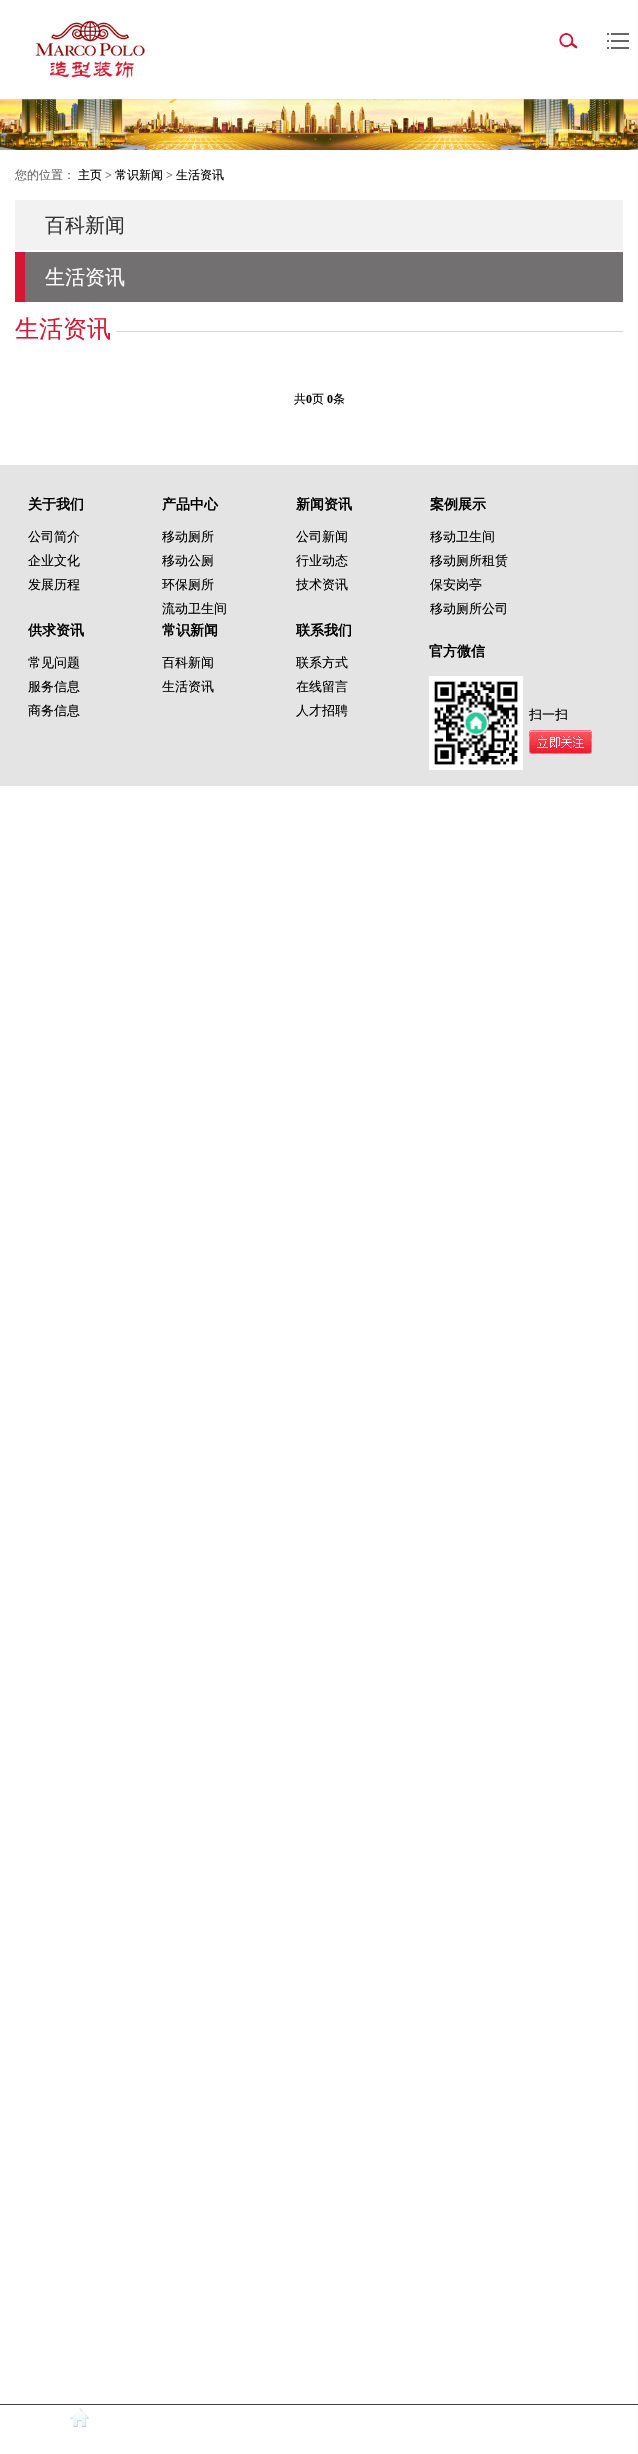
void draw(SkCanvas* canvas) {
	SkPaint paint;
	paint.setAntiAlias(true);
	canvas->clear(0xffffffff);
	canvas->drawImageRect(SkImages::DeferredFromEncodedData(SkData::MakeFromFileName("img4.png")), SkRect::MakeXYWH(0, 99, 638, 51), SkSamplingOptions());
	paint.setColor(0xffcccccc);
	paint.setMaskFilter(SkMaskFilter::MakeBlur(kNormal_SkBlurStyle, 1));
	canvas->drawRect(SkRect::MakeXYWH(0, 0, 638, 99), paint);
	paint.setMaskFilter(nullptr);
	paint.setColor(0xffffffff);
	canvas->drawRect(SkRect::MakeXYWH(0, 0, 638, 99), paint);
	canvas->drawImageRect(SkImages::DeferredFromEncodedData(SkData::MakeFromFileName("img1.png")), SkRect::MakeXYWH(32, 20, 116, 59), SkSamplingOptions());
	canvas->drawImageRect(SkImages::DeferredFromEncodedData(SkData::MakeFromFileName("img2.png")), SkRect::MakeXYWH(559, 33, 19, 16), SkSamplingOptions());
	canvas->drawImageRect(SkImages::DeferredFromEncodedData(SkData::MakeFromFileName("img3.png")), SkRect::MakeXYWH(607, 33, 22, 16), SkSamplingOptions());
	paint.setColor(0xffe4e4e4);
	canvas->drawRect(SkRect::MakeXYWH(0, 465, 638, 321), paint);
	paint.setColor(0xffcccccc);
	paint.setMaskFilter(SkMaskFilter::MakeBlur(kNormal_SkBlurStyle, 0.5));
	canvas->drawRect(SkRect::MakeXYWH(638, 0, 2, 2454), paint);
	paint.setMaskFilter(nullptr);
	SkFont f1(fontMgr->matchFamilyStyle("WenQuanYi Zen Hei", SkFontStyle(500, SkFontStyle::kNormal_Width, SkFontStyle::kUpright_Slant)), 12);
	f1.setSubpixel(true);
	paint.setColor(0xff666666);
	canvas->drawString("您的位置：", 15, 179, f1, paint);
	paint.setColor(0xff000000);
	canvas->drawString("主页", 78, 179, f1, paint);
	SkFont f2(fontMgr->matchFamilyStyle("Liberation Serif", SkFontStyle::Normal()), 12);
	f2.setSubpixel(true);
	paint.setColor(0xff666666);
	canvas->drawString(">", 105, 179, f2, paint);
	paint.setColor(0xff000000);
	canvas->drawString("常识新闻", 115, 179, f1, paint);
	paint.setColor(0xff666666);
	canvas->drawString(">", 166, 179, f2, paint);
	paint.setColor(0xff000000);
	canvas->drawString("生活资讯", 176, 179, f1, paint);
	paint.setColor(0xfff2f2f2);
	canvas->drawRect(SkRect::MakeXYWH(15, 200, 608, 50), paint);
	SkFont f3(fontMgr->matchFamilyStyle("WenQuanYi Zen Hei", SkFontStyle(500, SkFontStyle::kNormal_Width, SkFontStyle::kUpright_Slant)), 20);
	f3.setSubpixel(true);
	paint.setColor(0xff333333);
	canvas->drawString("百科新闻", 45, 232, f3, paint);
	paint.setColor(0xff727071);
	canvas->drawRect(SkRect::MakeXYWH(25, 252, 598, 50), paint);
	paint.setColor(0xffd71634);
	canvas->drawRect(SkRect::MakeXYWH(15, 252, 10, 50), paint);
	paint.setColor(0xffffffff);
	canvas->drawString("生活资讯", 45, 284, f3, paint);
	SkFont f4(fontMgr->matchFamilyStyle("WenQuanYi Zen Hei", SkFontStyle(500, SkFontStyle::kNormal_Width, SkFontStyle::kUpright_Slant)), 24);
	f4.setSubpixel(true);
	paint.setColor(0xffd71634);
	canvas->drawString("生活资讯", 15, 337, f4, paint);
	paint.setColor(0xffd6d6d6);
	canvas->drawRect(SkRect::MakeXYWH(116, 331, 507, 1), paint);
	paint.setColor(0xff000000);
	canvas->drawString("共", 294, 403, f1, paint);
	SkFont f5(fontMgr->matchFamilyStyle("Liberation Serif", SkFontStyle::Bold()), 12);
	f5.setSubpixel(true);
	canvas->drawString("0", 306, 403, f5, paint);
	canvas->drawString("页", 312, 403, f1, paint);
	canvas->drawString("0", 327, 403, f5, paint);
	canvas->drawString("条", 333, 403, f1, paint);
	SkFont f6(fontMgr->matchFamilyStyle("WenQuanYi Zen Hei", SkFontStyle::Bold()), 14);
	f6.setSubpixel(true);
	canvas->drawString("关于我们", 28, 509, f6, paint);
	SkFont f7(fontMgr->matchFamilyStyle("WenQuanYi Zen Hei", SkFontStyle(500, SkFontStyle::kNormal_Width, SkFontStyle::kUpright_Slant)), 13);
	f7.setSubpixel(true);
	canvas->drawString("公司简介", 28, 541, f7, paint);
	canvas->drawString("企业文化", 28, 565, f7, paint);
	canvas->drawString("发展历程", 28, 589, f7, paint);
	canvas->drawString("产品中心", 162, 509, f6, paint);
	canvas->drawString("移动厕所", 162, 541, f7, paint);
	canvas->drawString("移动公厕", 162, 565, f7, paint);
	canvas->drawString("环保厕所", 162, 589, f7, paint);
	canvas->drawString("流动卫生间", 162, 613, f7, paint);
	canvas->drawString("新闻资讯", 296, 509, f6, paint);
	canvas->drawString("公司新闻", 296, 541, f7, paint);
	canvas->drawString("行业动态", 296, 565, f7, paint);
	canvas->drawString("技术资讯", 296, 589, f7, paint);
	canvas->drawString("案例展示", 430, 509, f6, paint);
	canvas->drawString("移动卫生间", 430, 541, f7, paint);
	canvas->drawString("移动厕所租赁", 430, 565, f7, paint);
	canvas->drawString("保安岗亭", 430, 589, f7, paint);
	canvas->drawString("移动厕所公司", 430, 613, f7, paint);
	canvas->drawString("供求资讯", 28, 635, f6, paint);
	canvas->drawString("常见问题", 28, 667, f7, paint);
	canvas->drawString("服务信息", 28, 691, f7, paint);
	canvas->drawString("商务信息", 28, 715, f7, paint);
	canvas->drawString("常识新闻", 162, 635, f6, paint);
	canvas->drawString("百科新闻", 162, 667, f7, paint);
	canvas->drawString("生活资讯", 162, 691, f7, paint);
	canvas->drawString("联系我们", 296, 635, f6, paint);
	canvas->drawString("联系方式", 296, 667, f7, paint);
	canvas->drawString("在线留言", 296, 691, f7, paint);
	canvas->drawString("人才招聘", 296, 715, f7, paint);
	canvas->drawString("官方微信", 429, 656, f6, paint);
	canvas->drawImageRect(SkImages::DeferredFromEncodedData(SkData::MakeFromFileName("img5.png")), SkRect::MakeXYWH(429, 676, 94, 94), SkSamplingOptions());
	canvas->drawString("扫一扫", 529, 719, f7, paint);
	canvas->drawImageRect(SkImages::DeferredFromEncodedData(SkData::MakeFromFileName("img6.png")), SkRect::MakeXYWH(529, 730, 63, 24), SkSamplingOptions());
	paint.setColor(0xff3d3d46);
	canvas->drawRect(SkRect::MakeXYWH(0, 2404, 638, 1), paint);
	canvas->drawImageRect(SkImages::DeferredFromEncodedData(SkData::MakeFromFileName("img7.png")), SkRect::MakeXYWH(70, 2408, 19, 19), SkSamplingOptions());
}
